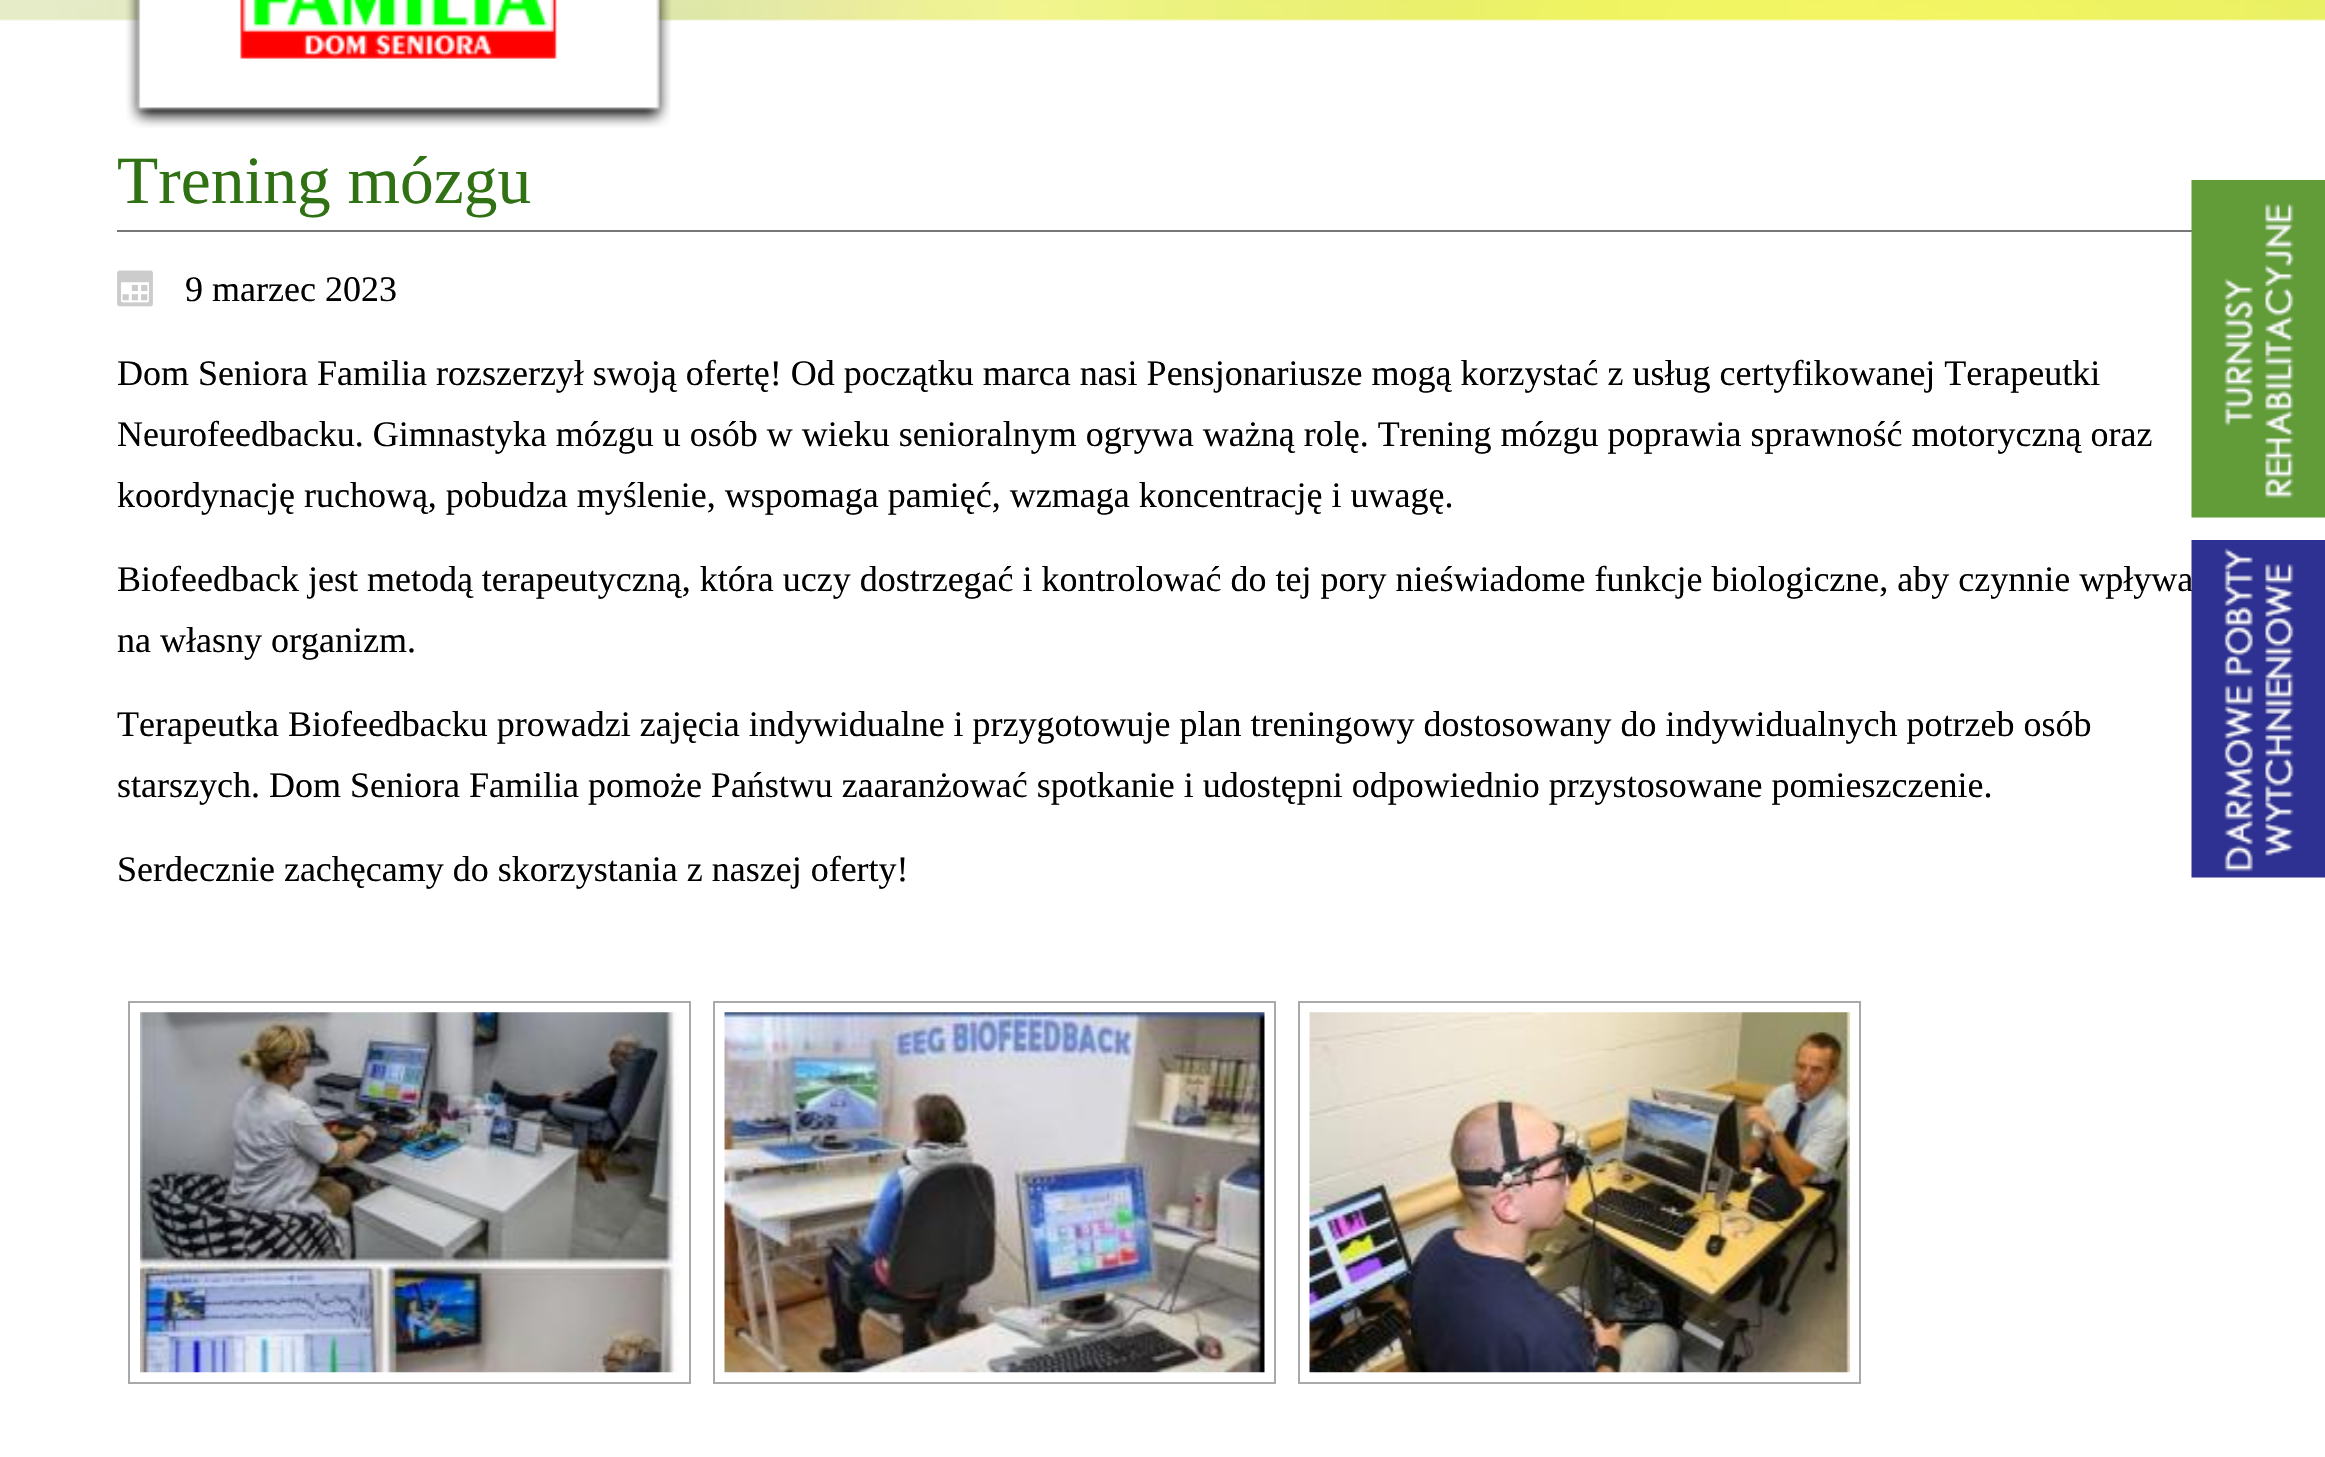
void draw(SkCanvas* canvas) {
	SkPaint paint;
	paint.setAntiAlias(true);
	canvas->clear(0xffffffff);
	canvas->drawImageRect(SkImages::DeferredFromEncodedData(SkData::MakeFromFileName("img1.png")), SkRect::MakeXYWH(0, 0, 2325, 21), SkSamplingOptions());
	canvas->drawImageRect(SkImages::DeferredFromEncodedData(SkData::MakeFromFileName("img2.png")), SkRect::MakeXYWH(126, 0, 545, 128), SkSamplingOptions());
	paint.setColor(0xff777777);
	canvas->drawRect(SkRect::MakeXYWH(117, 230, 2075, 2), paint);
	SkFont f1(fontMgr->matchFamilyStyle("Liberation Serif", SkFontStyle::Normal()), 67.5);
	f1.setSubpixel(true);
	paint.setColor(0xff2f7113);
	canvas->drawString("Trening mózgu", 117, 203, f1, paint);
	canvas->drawImageRect(SkImages::DeferredFromEncodedData(SkData::MakeFromFileName("img3.png")), SkRect::MakeXYWH(117, 270, 36, 37), SkSamplingOptions());
	SkFont f2(fontMgr->matchFamilyStyle("Liberation Serif", SkFontStyle::Normal()), 36);
	f2.setSubpixel(true);
	paint.setColor(0xff000000);
	canvas->drawString("9 marzec 2023", 185, 301, f2, paint);
	canvas->drawString("Dom Seniora Familia rozszerzył swoją ofertę! Od początku marca nasi Pensjonariusze mogą korzystać z usług certyfikowanej Terapeutki", 117, 385, f2, paint);
	canvas->drawString("Neurofeedbacku. Gimnastyka mózgu u osób w wieku senioralnym ogrywa ważną rolę. Trening mózgu poprawia sprawność motoryczną oraz", 117, 446, f2, paint);
	canvas->drawString("koordynację ruchową, pobudza myślenie, wspomaga pamięć, wzmaga koncentrację i uwagę.", 117, 507, f2, paint);
	canvas->drawString("Biofeedback jest metodą terapeutyczną, która uczy dostrzegać i kontrolować do tej pory nieświadome funkcje biologiczne, aby czynnie wpływa", 117, 591, f2, paint);
	canvas->drawString("na własny organizm.", 117, 652, f2, paint);
	canvas->drawString("Terapeutka Biofeedbacku prowadzi zajęcia indywidualne i przygotowuje plan treningowy dostosowany do indywidualnych potrzeb osób", 117, 736, f2, paint);
	canvas->drawString("starszych. Dom Seniora Familia pomoże Państwu zaaranżować spotkanie i udostępni odpowiednio przystosowane pomieszczenie.", 117, 797, f2, paint);
	canvas->drawString("Serdecznie zachęcamy do skorzystania z naszej oferty!", 117, 881, f2, paint);
	paint.setStroke(true);
	paint.setStrokeWidth(2);
	paint.setColor(0xffa9a9a9);
	canvas->drawRect(SkRect::MakeXYWH(129, 1002, 561, 381), paint);
	canvas->drawImageRect(SkImages::DeferredFromEncodedData(SkData::MakeFromFileName("img4.png")), SkRect::MakeXYWH(140, 1012, 540, 361), SkSamplingOptions());
	canvas->drawRect(SkRect::MakeXYWH(714, 1002, 561, 381), paint);
	canvas->drawImageRect(SkImages::DeferredFromEncodedData(SkData::MakeFromFileName("img5.png")), SkRect::MakeXYWH(724, 1012, 541, 361), SkSamplingOptions());
	canvas->drawRect(SkRect::MakeXYWH(1299, 1002, 561, 381), paint);
	canvas->drawImageRect(SkImages::DeferredFromEncodedData(SkData::MakeFromFileName("img6.png")), SkRect::MakeXYWH(1309, 1012, 541, 361), SkSamplingOptions());
	canvas->drawImageRect(SkImages::DeferredFromEncodedData(SkData::MakeFromFileName("img7.png")), SkRect::MakeXYWH(2191, 180, 134, 338), SkSamplingOptions());
	canvas->drawImageRect(SkImages::DeferredFromEncodedData(SkData::MakeFromFileName("img8.png")), SkRect::MakeXYWH(2191, 540, 134, 338), SkSamplingOptions());
}
